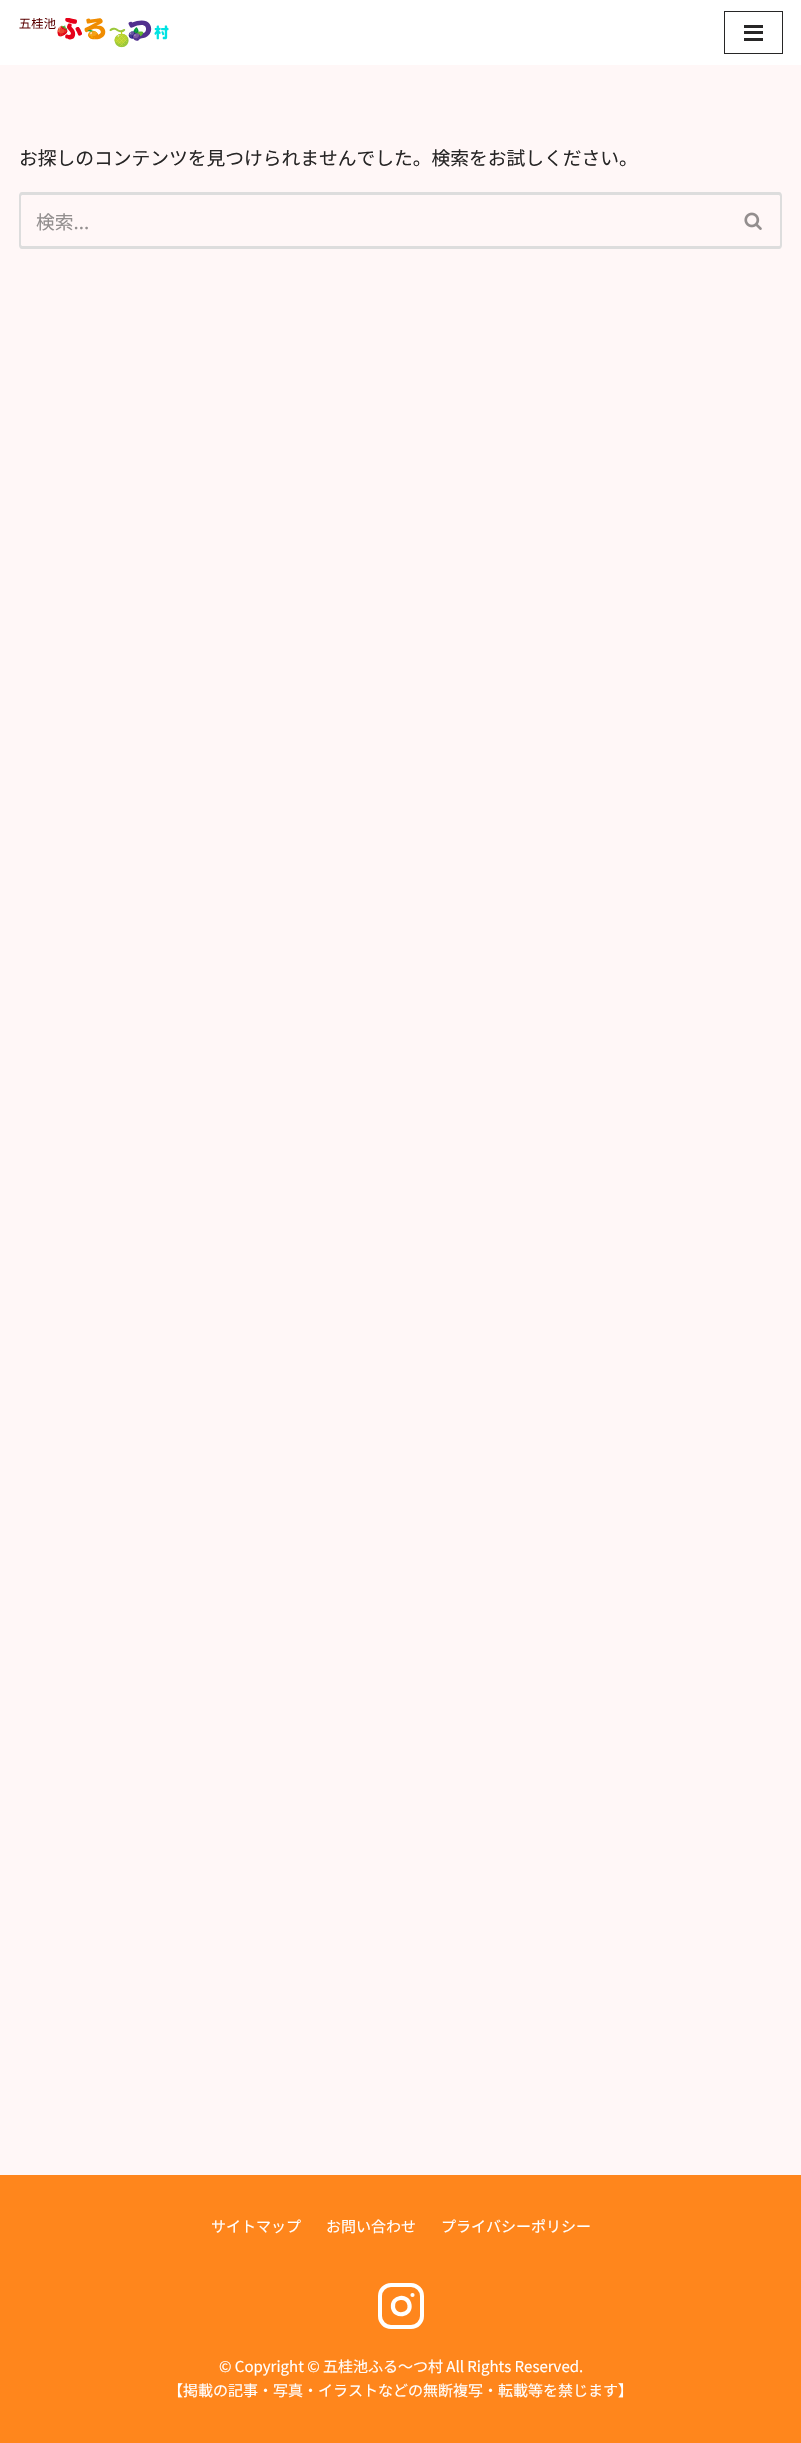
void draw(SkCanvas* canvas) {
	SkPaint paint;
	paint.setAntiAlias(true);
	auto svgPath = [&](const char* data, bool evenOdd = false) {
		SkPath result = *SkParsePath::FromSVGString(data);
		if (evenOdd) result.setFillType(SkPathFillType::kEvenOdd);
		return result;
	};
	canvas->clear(0xfffff7f7);
	paint.setColor(0xffffffff);
	canvas->drawRect(SkRect::MakeXYWH(0, 0, 801, 65), paint);
	canvas->drawImageRect(SkImages::DeferredFromEncodedData(SkData::MakeFromFileName("img1.png")), SkRect::MakeXYWH(19, 18, 150, 30), SkSamplingOptions());
	paint.setStroke(true);
	paint.setStrokeWidth(1);
	paint.setColor(0xff272626);
	canvas->drawRect(SkRect::MakeXYWH(724.5, 11.5, 58, 42), paint);
	paint.setStroke(false);
	canvas->drawRect(SkRect::MakeXYWH(744, 25, 19, 3), paint);
	canvas->drawRect(SkRect::MakeXYWH(744, 31, 19, 3), paint);
	canvas->drawRect(SkRect::MakeXYWH(744, 38, 19, 3), paint);
	SkFont f1(fontMgr->matchFamilyStyle("Noto Sans JP", SkFontStyle::Normal()), 18.75);
	f1.setSubpixel(true);
	canvas->drawString("お探しのコンテンツを見つけられませんでした。検索をお試しください。", 19, 165, f1, paint);
	paint.setColor(0xffdddddd);
	canvas->drawPath(svgPath("M22 192H726V249H22C20 249 19 247 19 245V196C19 194 20 192 22 192ZM22 195H726V246H22L21 245V196C21 196 22 195 22 195Z", true), paint);
	paint.setColor(0xff938f8f);
	canvas->drawString("検索...", 36, 229, f1, paint);
	paint.setColor(0xffdddddd);
	canvas->drawPath(svgPath("M726 192H779C781 192 782 194 782 196V245C782 247 781 249 779 249H726ZM726 195H779C779 195 780 196 780 196V245C780 246 779 246 779 246H726Z", true), paint);
	canvas->drawImageRect(SkImages::DeferredFromEncodedData(SkData::MakeFromFileName("img2.png")), SkRect::MakeXYWH(744, 212, 18, 18), SkSamplingOptions());
	paint.setColor(0xffff861c);
	canvas->drawRect(SkRect::MakeXYWH(0, 2175, 801, 268), paint);
	SkFont f2(fontMgr->matchFamilyStyle("Noto Sans JP", SkFontStyle::Normal()), 15);
	f2.setSubpixel(true);
	paint.setColor(0xffffffff);
	canvas->drawString("サイトマップ", 211, 2232, f2, paint);
	canvas->drawString("お問い合わせ", 326, 2232, f2, paint);
	canvas->drawString("プライバシーポリシー", 441, 2232, f2, paint);
	paint.setStroke(true);
	paint.setStrokeWidth(4);
	canvas->drawRoundRect(SkRect::MakeXYWH(380, 2285, 42, 42), 11, 11, paint);
	paint.setStrokeWidth(4.2);
	paint.setStrokeCap(SkPaint::kRound_Cap);
	paint.setStrokeJoin(SkPaint::kRound_Join);
	canvas->drawPath(svgPath("M409.5 2305C411 2315.5 395 2318 393 2307.5C391.5 2296.5 408 2294 409.5 2305ZM412.5 2295H412.5"), paint);
	paint.setStroke(false);
	canvas->drawString("© Copyright © 五桂池ふる〜つ村 All Rights Reserved.", 219, 2372, f2, paint);
	canvas->drawString("【掲載の記事・写真・イラストなどの無断複写・転載等を禁じます】", 168, 2396, f2, paint);
}
